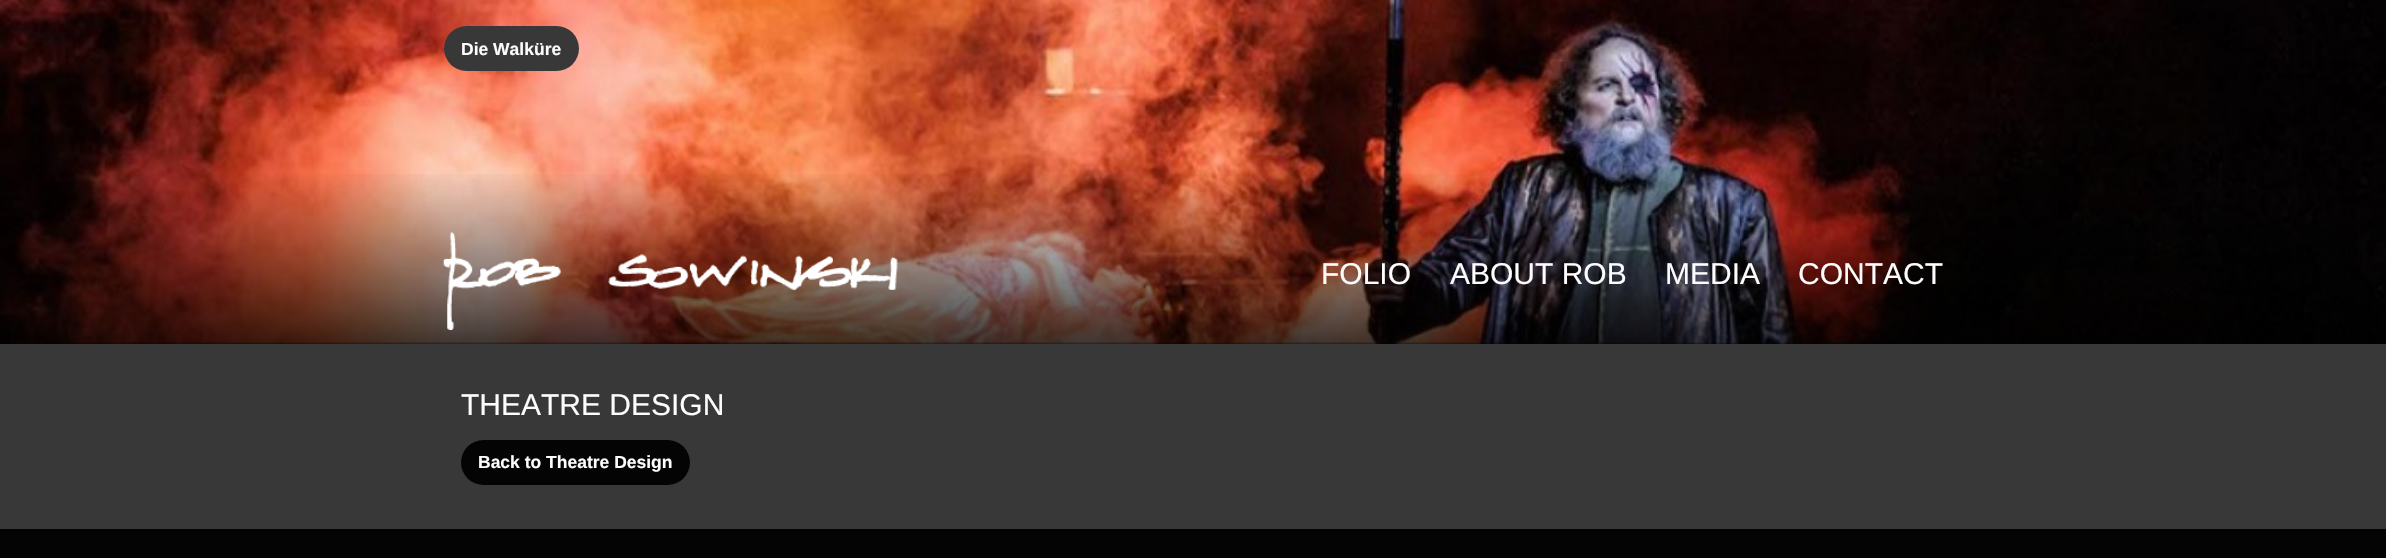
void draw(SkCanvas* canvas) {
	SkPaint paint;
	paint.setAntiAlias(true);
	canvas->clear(0xff040404);
	canvas->drawImageRect(SkImages::DeferredFromEncodedData(SkData::MakeFromFileName("img1.png")), SkRect::MakeXYWH(0, 0, 2386, 344), SkSamplingOptions());
	paint.setColor(0xff383838);
	canvas->drawRoundRect(SkRect::MakeXYWH(444, 26, 135, 45), 22.5, 22.5, paint);
	SkFont f1(fontMgr->matchFamilyStyle("Liberation Sans", SkFontStyle::Bold()), 17.5);
	f1.setSubpixel(true);
	paint.setColor(0xfffdfdfd);
	canvas->drawString("Die Walküre", 461, 55, f1, paint);
	{
		const SkColor colors[] = {0x00000000, 0xbf000000};
		const float stops[] = {0, 1};
		const SkPoint ends[] = {{1193, 169}, {1193, 344}};
		paint.setShader(SkGradientShader::MakeLinear(ends, colors, stops, 2, SkTileMode::kClamp));
		paint.setAlpha(255);
	}
	canvas->drawRect(SkRect::MakeXYWH(0, 174, 2386, 170), paint);
	canvas->drawImageRect(SkImages::DeferredFromEncodedData(SkData::MakeFromFileName("img2.png")), SkRect::MakeXYWH(443, 232, 455, 98), SkSamplingOptions());
	SkFont f2(fontMgr->matchFamilyStyle("Liberation Sans", SkFontStyle::Normal()), 30);
	f2.setSubpixel(true);
	paint.setShader(nullptr);
	paint.setColor(0xfffdfdfd);
	canvas->drawString("FOLIO", 1321, 284, f2, paint);
	canvas->drawString("ABOUT ROB", 1450, 284, f2, paint);
	canvas->drawString("MEDIA", 1665, 284, f2, paint);
	canvas->drawString("CONTACT", 1798, 284, f2, paint);
	paint.setColor(0xff383838);
	canvas->drawRect(SkRect::MakeXYWH(0, 344, 2386, 185), paint);
	paint.setColor(0xfffdfdfd);
	canvas->drawString("THEATRE DESIGN", 461, 415, f2, paint);
	paint.setColor(0xff040404);
	canvas->drawRoundRect(SkRect::MakeXYWH(461, 440, 229, 45), 22.5, 22.5, paint);
	paint.setColor(0xfffdfdfd);
	canvas->drawString("Back to Theatre Design", 478, 468, f1, paint);
}
